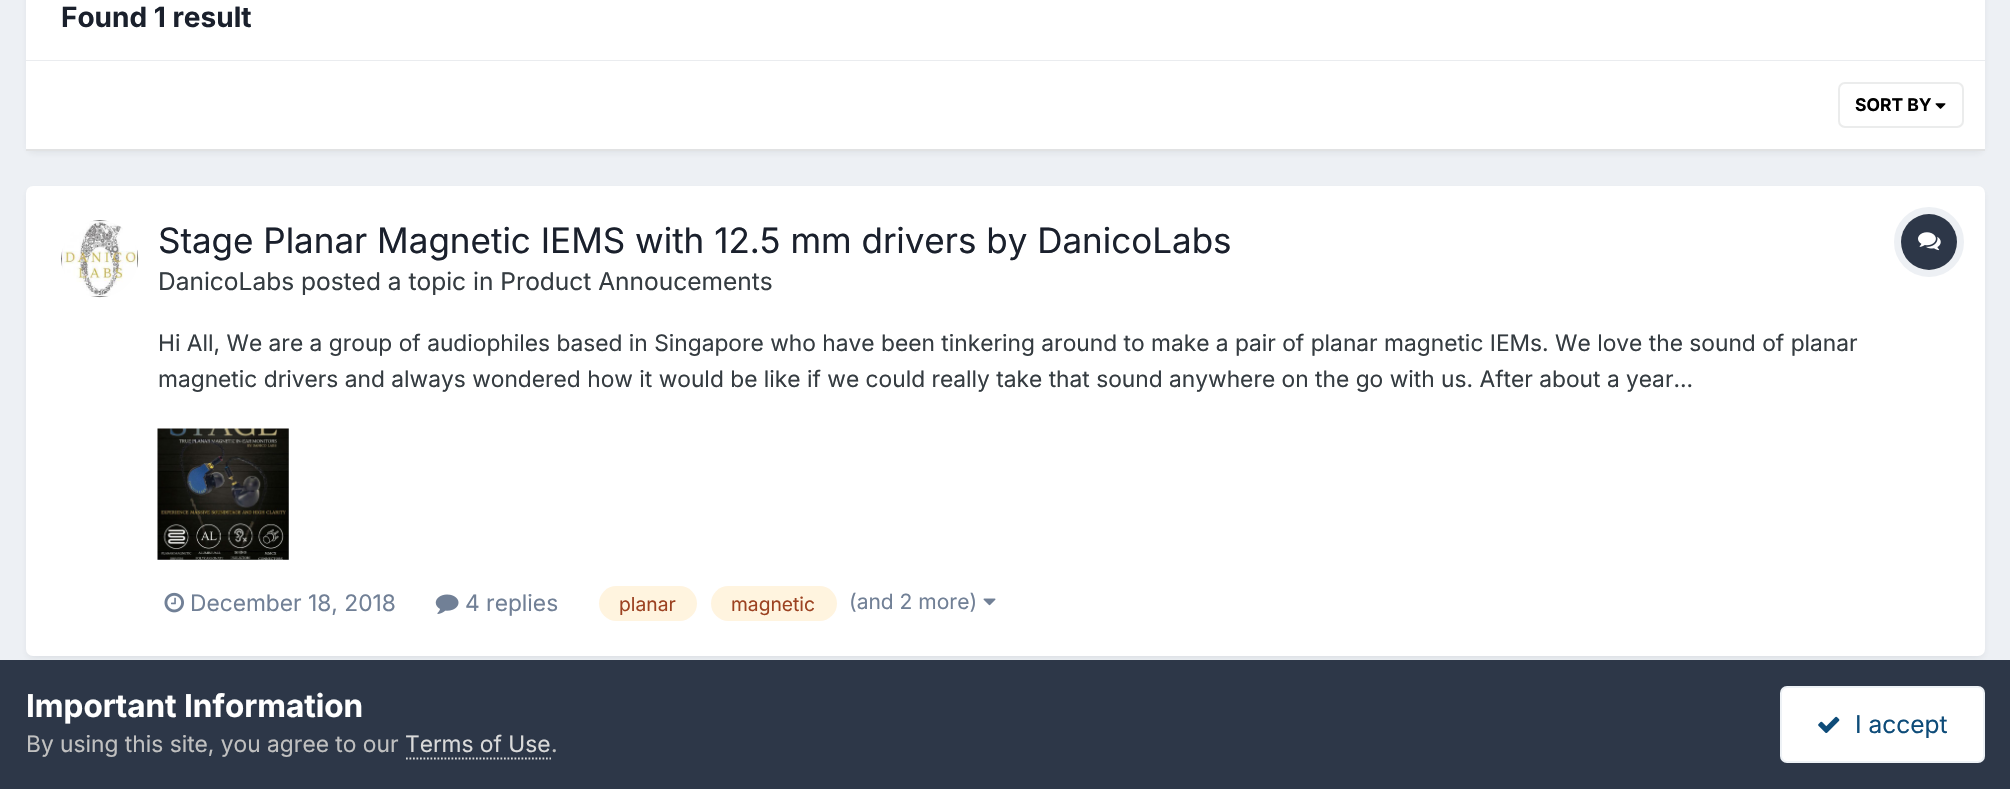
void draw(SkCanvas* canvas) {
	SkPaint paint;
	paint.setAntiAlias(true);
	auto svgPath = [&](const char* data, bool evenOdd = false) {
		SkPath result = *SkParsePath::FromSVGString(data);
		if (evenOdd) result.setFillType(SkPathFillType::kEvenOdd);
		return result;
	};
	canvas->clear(0xffedf0f4);
	paint.setColor(0x1a2d3748);
	paint.setMaskFilter(SkMaskFilter::MakeBlur(kNormal_SkBlurStyle, 3.5));
	canvas->drawRoundRect(SkRect::MakeXYWH(28, -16, 1955, 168), 5, 5, paint);
	paint.setMaskFilter(nullptr);
	paint.setColor(0xffffffff);
	canvas->drawRect(SkRect::MakeXYWH(26, 0, 1959, 60), paint);
	paint.setColor(0xffeaecef);
	canvas->drawRect(SkRect::MakeXYWH(26, 60, 1959, 1), paint);
	SkFont f1(fontMgr->matchFamilyStyle("Inter", SkFontStyle::Bold()), 28);
	f1.setSubpixel(true);
	paint.setColor(0xff1a202c);
	canvas->drawString("Found 1 result", 61, 27, f1, paint);
	paint.setColor(0xffffffff);
	canvas->drawRect(SkRect::MakeXYWH(26, 61, 1959, 88), paint);
	paint.setColor(0xffe1e2e3);
	canvas->drawRect(SkRect::MakeXYWH(26, 149, 1959, 2), paint);
	canvas->drawImageRect(SkImages::DeferredFromEncodedData(SkData::MakeFromFileName("img1.png")), SkRect::MakeXYWH(1935, 103, 11, 6), SkSamplingOptions());
	paint.setStroke(true);
	paint.setStrokeWidth(2);
	paint.setColor(0xffebecec);
	canvas->drawRoundRect(SkRect::MakeXYWH(1839, 83, 124, 44), 6, 6, paint);
	SkFont f2(fontMgr->matchFamilyStyle("Inter", SkFontStyle::Bold()), 17.5);
	f2.setSubpixel(true);
	paint.setStroke(false);
	paint.setColor(0xff000000);
	canvas->drawString("SORT BY", 1855, 111, f2, paint);
	paint.setColor(0x1a2d3748);
	paint.setMaskFilter(SkMaskFilter::MakeBlur(kNormal_SkBlurStyle, 3.5));
	canvas->drawRoundRect(SkRect::MakeXYWH(28, 191, 1955, 467), 5, 5, paint);
	paint.setMaskFilter(nullptr);
	paint.setColor(0xffffffff);
	canvas->drawRoundRect(SkRect::MakeXYWH(26, 186, 1959, 470), 7, 7, paint);
	canvas->drawImageRect(SkImages::DeferredFromEncodedData(SkData::MakeFromFileName("img2.png")), SkRect::MakeXYWH(61, 220, 78, 78), SkSamplingOptions());
	SkFont f3(fontMgr->matchFamilyStyle("Inter", SkFontStyle::Normal()), 35);
	f3.setSubpixel(true);
	paint.setColor(0xff1a202c);
	canvas->drawString("Stage Planar Magnetic IEMS with 12.5 mm drivers by DanicoLabs", 158, 253, f3, paint);
	SkFont f4(fontMgr->matchFamilyStyle("Inter", SkFontStyle::Normal()), 24.5);
	f4.setSubpixel(true);
	paint.setColor(0xff353c41);
	canvas->drawString("DanicoLabs posted a topic in Product Annoucements", 158, 290, f4, paint);
	paint.setStroke(true);
	paint.setStrokeWidth(7);
	paint.setColor(0xffedf0f4);
	canvas->drawCircle(1929, 242, 31.5, paint);
	paint.setStroke(false);
	paint.setColor(0xff2d3748);
	canvas->drawCircle(1929, 242, 28, paint);
	canvas->drawImageRect(SkImages::DeferredFromEncodedData(SkData::MakeFromFileName("img3.png")), SkRect::MakeXYWH(1918, 232, 23, 19), SkSamplingOptions());
	SkFont f5(fontMgr->matchFamilyStyle("Inter", SkFontStyle::Normal()), 22.75);
	f5.setSubpixel(true);
	paint.setColor(0xff353c41);
	canvas->drawString("Hi All, We are a group of audiophiles based in Singapore who have been tinkering around to make a pair of planar magnetic IEMs. We love the sound of planar", 158, 351, f5, paint);
	canvas->drawString("magnetic drivers and always wondered how it would be like if we could really take that sound anywhere on the go with us. After about a year...", 158, 387, f5, paint);
	paint.setColor(0xffedf2f7);
	canvas->drawRect(SkRect::MakeXYWH(158, 429, 131, 131), paint);
	canvas->drawImageRect(SkImages::DeferredFromEncodedData(SkData::MakeFromFileName("img4.png")), SkRect::MakeXYWH(157, 428, 132, 132), SkSamplingOptions());
	canvas->drawImageRect(SkImages::DeferredFromEncodedData(SkData::MakeFromFileName("img5.png")), SkRect::MakeXYWH(164, 592, 20, 21), SkSamplingOptions());
	paint.setColor(0xff718096);
	canvas->drawString("December 18, 2018", 190, 611, f5, paint);
	canvas->drawImageRect(SkImages::DeferredFromEncodedData(SkData::MakeFromFileName("img6.png")), SkRect::MakeXYWH(435, 594, 24, 20), SkSamplingOptions());
	canvas->drawString("4 replies", 465, 611, f5, paint);
	paint.setColor(0xfffff4df);
	canvas->drawRoundRect(SkRect::MakeXYWH(599, 586, 98, 35), 17.5, 17.5, paint);
	SkFont f6(fontMgr->matchFamilyStyle("Inter", SkFontStyle::Normal()), 19.25);
	f6.setSubpixel(true);
	paint.setColor(0xff9c4221);
	canvas->drawString("planar", 619, 611, f6, paint);
	paint.setColor(0xfffff4df);
	canvas->drawRoundRect(SkRect::MakeXYWH(711, 586, 126, 35), 17.5, 17.5, paint);
	paint.setColor(0xff9c4221);
	canvas->drawString("magnetic", 731, 611, f6, paint);
	SkFont f7(fontMgr->matchFamilyStyle("Inter", SkFontStyle::Normal()), 21);
	f7.setSubpixel(true);
	paint.setColor(0xff718096);
	canvas->drawString("(and 2 more)", 849, 609, f7, paint);
	canvas->drawImageRect(SkImages::DeferredFromEncodedData(SkData::MakeFromFileName("img7.png")), SkRect::MakeXYWH(983, 598, 13, 8), SkSamplingOptions());
	paint.setColor(0xff2d3748);
	canvas->drawRect(SkRect::MakeXYWH(0, 660, 2010, 129), paint);
	SkFont f8(fontMgr->matchFamilyStyle("Inter", SkFontStyle::Bold()), 31.5);
	f8.setSubpixel(true);
	paint.setColor(0xffffffff);
	canvas->drawString("Important Information", 26, 717, f8, paint);
	paint.setColor(0xffc0c0c0);
	canvas->drawString("By using this site, you agree to our", 26, 752, f5, paint);
	paint.setColor(0xffdadada);
	canvas->drawString("Terms of Use", 405, 752, f5, paint);
	paint.setStroke(true);
	paint.setStrokeWidth(1.8);
	paint.setPathEffect(SkDashPathEffect::Make({{1.75f, 1.75f}}, 0));
	canvas->drawPath(svgPath("M406 758.5H551"), paint);
	paint.setPathEffect(nullptr);
	paint.setStroke(false);
	paint.setColor(0xffc0c0c0);
	canvas->drawString(".", 551, 752, f5, paint);
	paint.setColor(0xffffffff);
	canvas->drawRoundRect(SkRect::MakeXYWH(1780, 686, 205, 77), 7, 7, paint);
	paint.setStroke(true);
	paint.setStrokeWidth(2);
	paint.setColor(0x120e4c79);
	canvas->drawRoundRect(SkRect::MakeXYWH(1781, 687, 203, 75), 6, 6, paint);
	canvas->drawImageRect(SkImages::DeferredFromEncodedData(SkData::MakeFromFileName("img8.png")), SkRect::MakeXYWH(1818, 716, 22, 17), SkSamplingOptions());
	paint.setStroke(false);
	paint.setColor(0xff0e4c79);
	canvas->drawString("I accept", 1855, 733, f4, paint);
}
